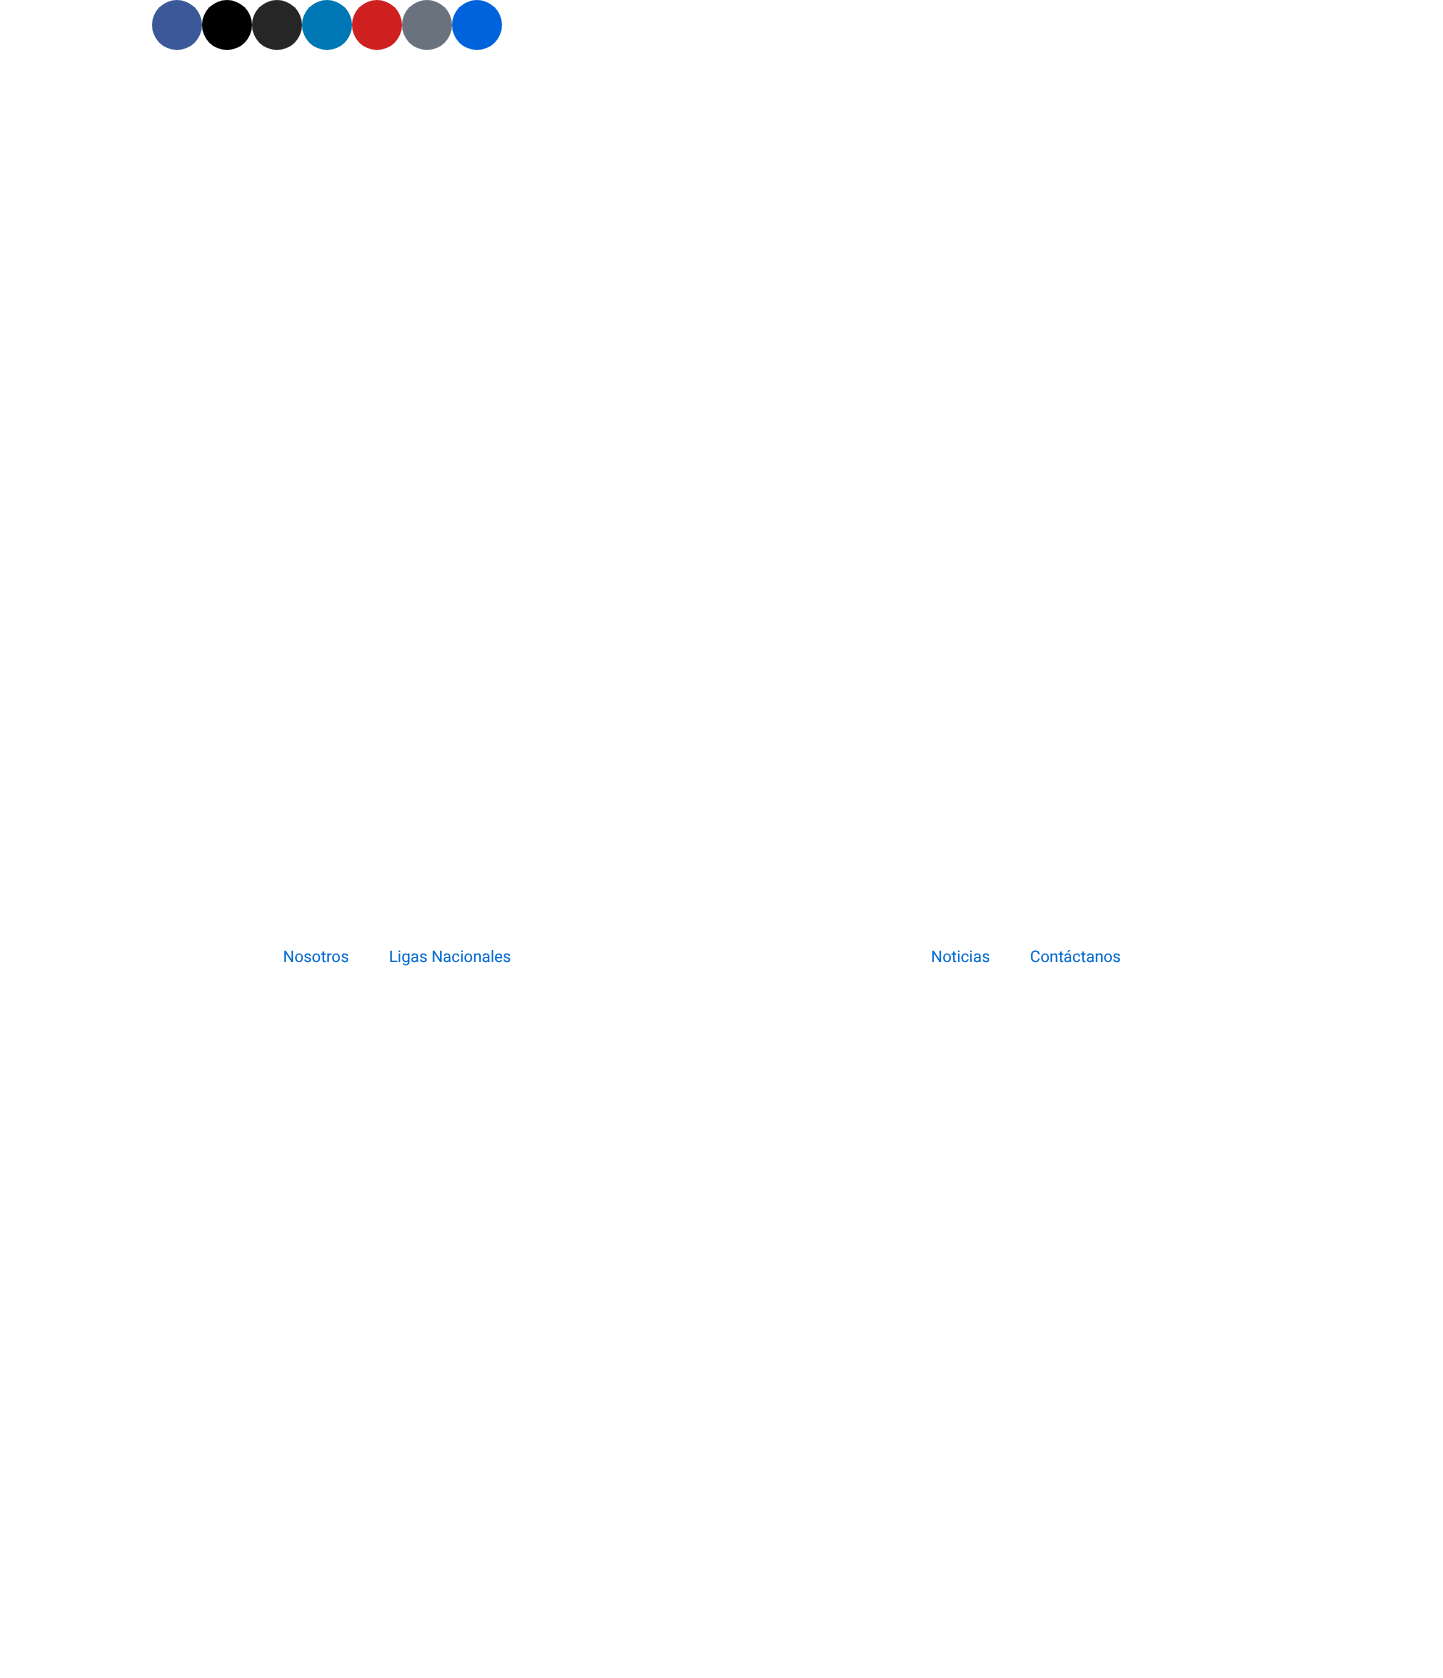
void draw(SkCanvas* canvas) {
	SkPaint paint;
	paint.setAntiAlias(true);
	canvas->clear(0xffffffff);
	paint.setColor(0xff3b5998);
	canvas->drawCircle(177, 25, 25, paint);
	paint.setColor(0xff000000);
	canvas->drawCircle(227, 25, 25, paint);
	paint.setColor(0xff262626);
	canvas->drawCircle(277, 25, 25, paint);
	paint.setColor(0xff0077b5);
	canvas->drawCircle(327, 25, 25, paint);
	paint.setColor(0xffcd201f);
	canvas->drawCircle(377, 25, 25, paint);
	paint.setColor(0xff69727d);
	canvas->drawCircle(427, 25, 25, paint);
	paint.setColor(0xff0063dc);
	canvas->drawCircle(477, 25, 25, paint);
	SkFont f1(fontMgr->matchFamilyStyle("Roboto", SkFontStyle::Normal()), 16);
	f1.setSubpixel(true);
	paint.setColor(0xff046bd2);
	canvas->drawString("Nosotros", 283, 962, f1, paint);
	canvas->drawString("Ligas Nacionales", 389, 962, f1, paint);
	canvas->drawString("Noticias", 931, 962, f1, paint);
	canvas->drawString("Contáctanos", 1030, 962, f1, paint);
}
